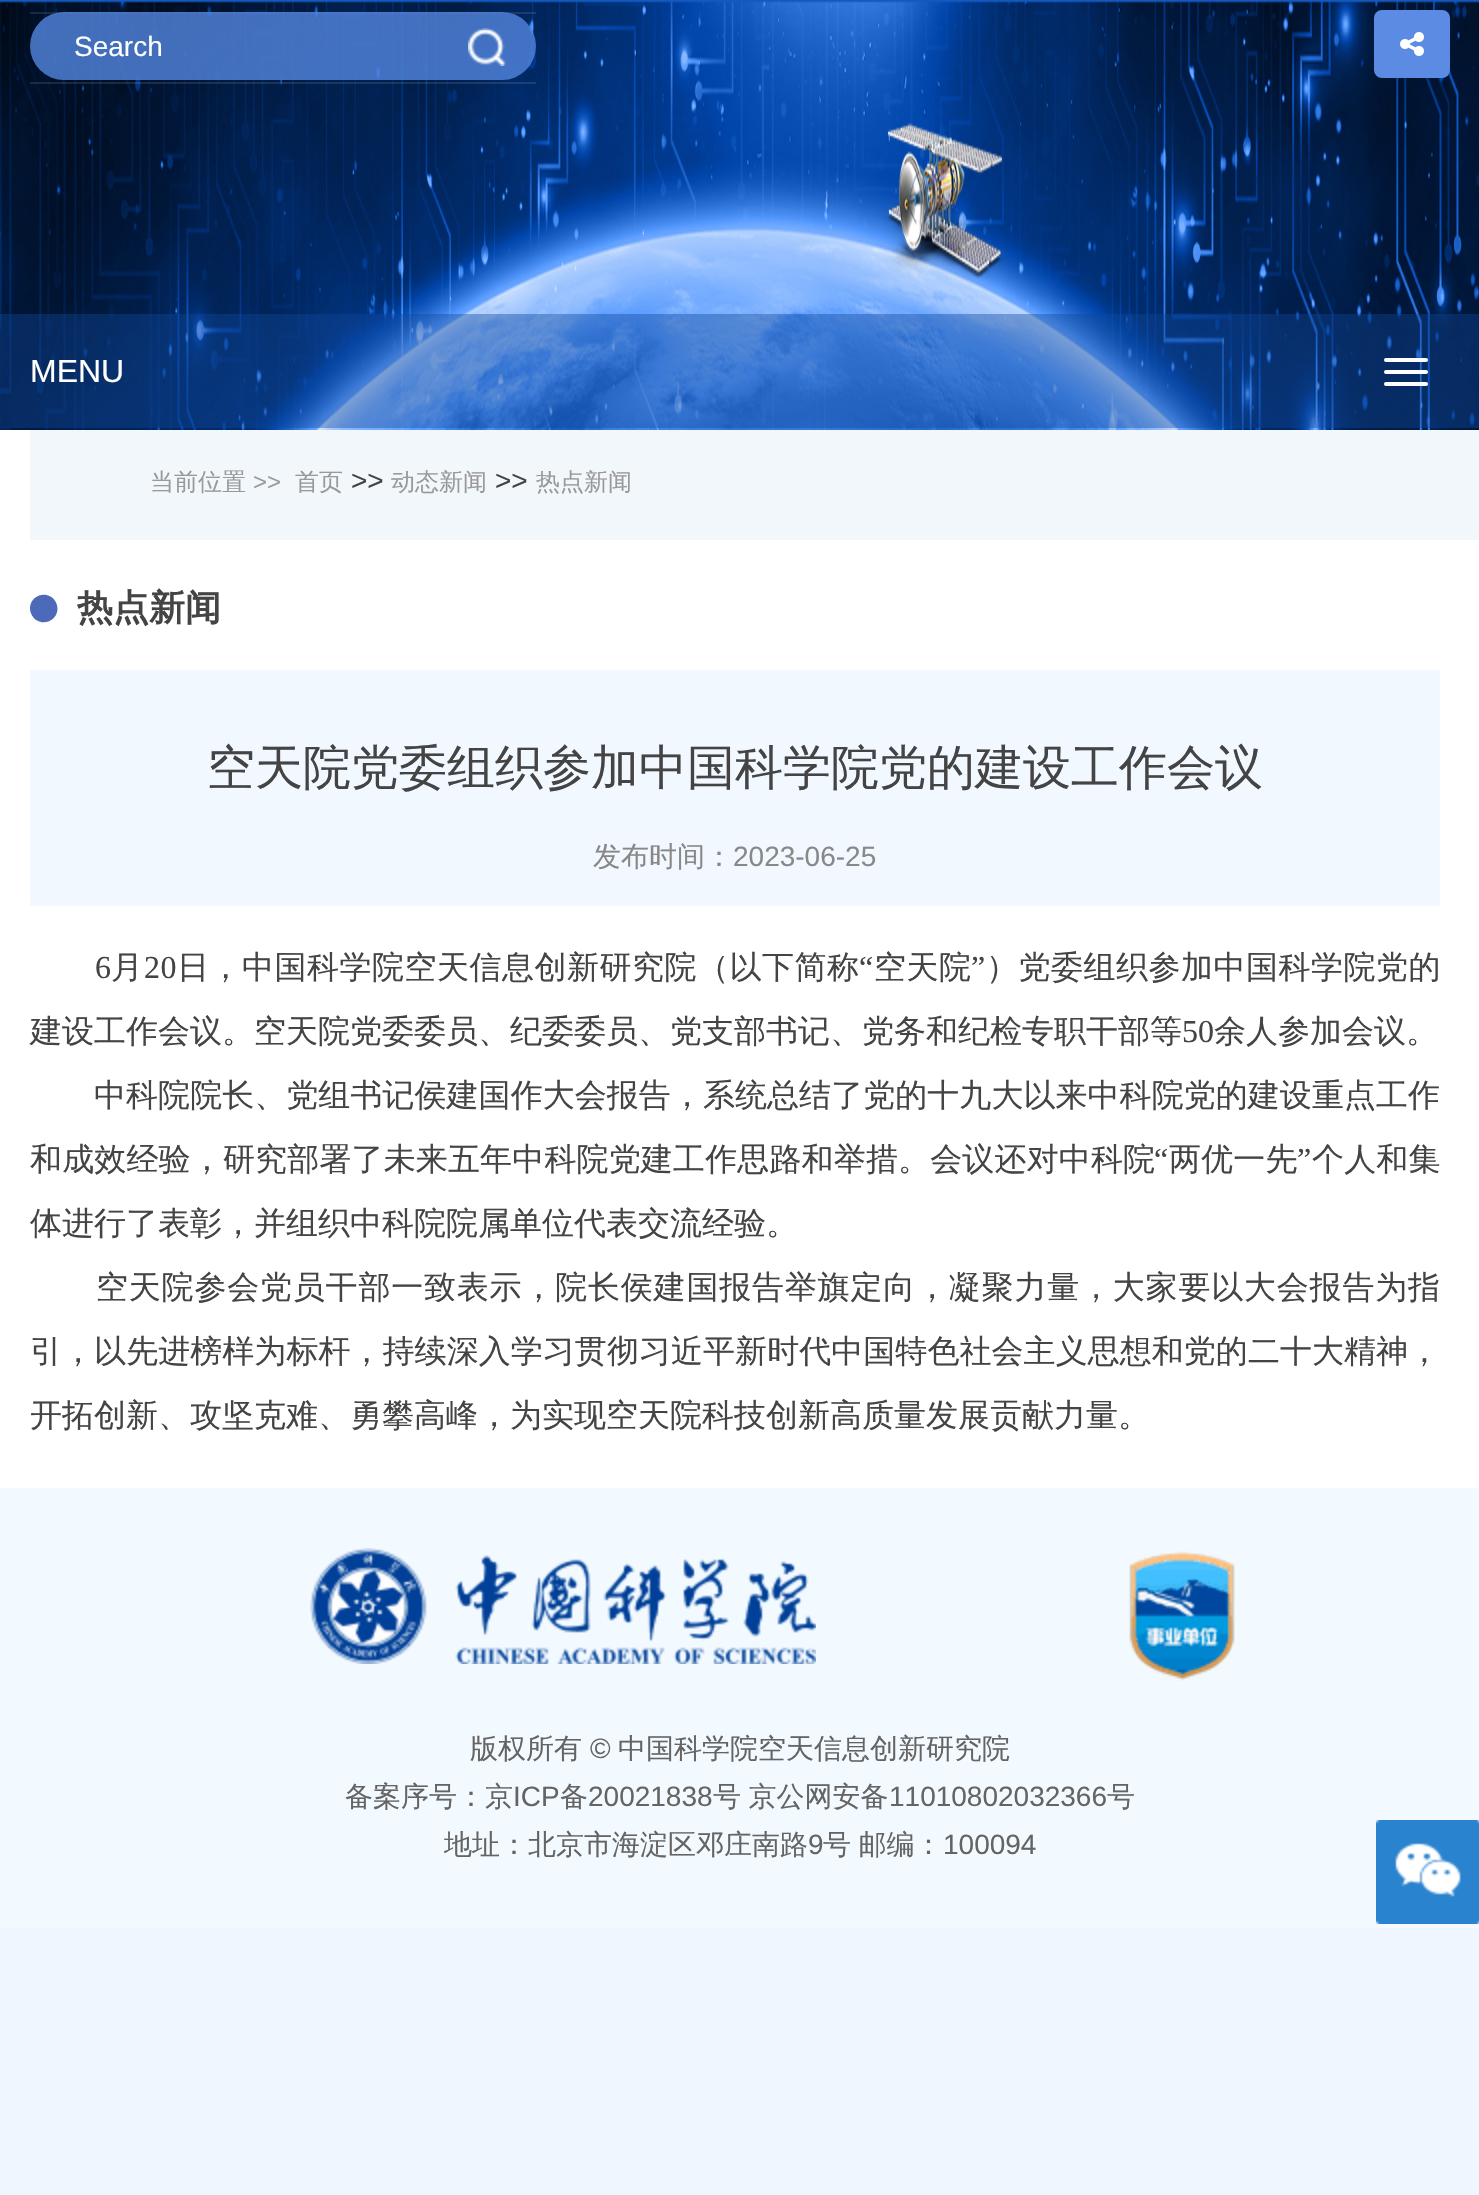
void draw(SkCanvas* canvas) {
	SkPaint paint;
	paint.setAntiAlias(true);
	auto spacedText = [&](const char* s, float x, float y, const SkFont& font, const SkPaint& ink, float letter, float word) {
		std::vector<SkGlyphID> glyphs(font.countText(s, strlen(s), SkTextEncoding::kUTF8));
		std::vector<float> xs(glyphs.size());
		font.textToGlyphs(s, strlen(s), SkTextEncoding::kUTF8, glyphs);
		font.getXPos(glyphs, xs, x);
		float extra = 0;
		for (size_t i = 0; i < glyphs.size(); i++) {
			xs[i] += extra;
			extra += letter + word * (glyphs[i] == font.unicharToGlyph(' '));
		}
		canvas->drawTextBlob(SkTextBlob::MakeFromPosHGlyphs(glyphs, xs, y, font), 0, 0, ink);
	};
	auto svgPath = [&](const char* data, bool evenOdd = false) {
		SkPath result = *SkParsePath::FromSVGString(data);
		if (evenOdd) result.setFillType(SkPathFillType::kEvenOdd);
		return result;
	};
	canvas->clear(0xffeff6ff);
	canvas->drawImageRect(SkImages::DeferredFromEncodedData(SkData::MakeFromFileName("img1.png")), SkRect::MakeXYWH(0, 0, 1479, 430), SkSamplingOptions());
	paint.setColor(0x1affffff);
	canvas->drawRect(SkRect::MakeXYWH(30, 82, 506, 2), paint);
	canvas->drawRect(SkRect::MakeXYWH(30, 12, 506, 2), paint);
	paint.setColor(0xcc5284dd);
	canvas->drawRoundRect(SkRect::MakeXYWH(30, 12, 506, 68), 34, 34, paint);
	SkFont f1(fontMgr->matchFamilyStyle("Liberation Sans", SkFontStyle::Normal()), 28);
	f1.setSubpixel(true);
	paint.setColor(0xffffffff);
	canvas->drawString("Search", 74, 56, f1, paint);
	canvas->drawImageRect(SkImages::DeferredFromEncodedData(SkData::MakeFromFileName("img2.png")), SkRect::MakeXYWH(468, 28, 38, 38), SkSamplingOptions());
	paint.setColor(0xff5c8be3);
	canvas->drawRoundRect(SkRect::MakeXYWH(1374, 10, 76, 68), 8, 8, paint);
	canvas->drawImageRect(SkImages::DeferredFromEncodedData(SkData::MakeFromFileName("img3.png")), SkRect::MakeXYWH(1400, 32, 24, 24), SkSamplingOptions());
	paint.setColor(0x660e4698);
	canvas->drawRect(SkRect::MakeXYWH(0, 314, 1479, 114), paint);
	SkFont f2(fontMgr->matchFamilyStyle("Liberation Sans", SkFontStyle::Normal()), 32);
	f2.setSubpixel(true);
	paint.setColor(0xffffffff);
	canvas->drawString("MENU", 30, 382, f2, paint);
	canvas->drawRoundRect(SkRect::MakeXYWH(1384, 358, 44, 4), 2, 2, paint);
	canvas->drawRoundRect(SkRect::MakeXYWH(1384, 370, 44, 4), 2, 2, paint);
	canvas->drawRoundRect(SkRect::MakeXYWH(1384, 382, 44, 4), 2, 2, paint);
	canvas->drawRect(SkRect::MakeXYWH(0, 430, 1479, 1058), paint);
	paint.setColor(0xfff2f7fc);
	canvas->drawRect(SkRect::MakeXYWH(30, 430, 1449, 110), paint);
	SkFont f3(fontMgr->matchFamilyStyle("WenQuanYi Zen Hei", SkFontStyle(500, SkFontStyle::kNormal_Width, SkFontStyle::kUpright_Slant)), 24);
	f3.setSubpixel(true);
	paint.setColor(0xff999999);
	canvas->drawString("当前位置", 150, 490, f3, paint);
	SkFont f4(fontMgr->matchFamilyStyle("Liberation Sans", SkFontStyle::Normal()), 24);
	f4.setSubpixel(true);
	canvas->drawString(">>", 253, 490, f4, paint);
	canvas->drawString("首页", 295, 490, f3, paint);
	paint.setColor(0xff444444);
	canvas->drawString(">>", 351, 490, f1, paint);
	paint.setColor(0xff999999);
	canvas->drawString("动态新闻", 391, 490, f3, paint);
	paint.setColor(0xff444444);
	canvas->drawString(">>", 495, 490, f1, paint);
	paint.setColor(0xff999999);
	canvas->drawString("热点新闻", 536, 490, f3, paint);
	paint.setColor(0xff4c69ba);
	canvas->drawPath(svgPath("M55.5 601.5C57 604 57.5 607 57.5 609.5C56.5 623 38.5 627 32 615.5C30.5 613 30 610.5 30 607.5C31 594 49 590 55.5 601.5Z"), paint);
	SkFont f5(fontMgr->matchFamilyStyle("WenQuanYi Zen Hei", SkFontStyle::Bold()), 36);
	f5.setSubpixel(true);
	paint.setColor(0xff444444);
	canvas->drawString("热点新闻", 77, 620, f5, paint);
	paint.setColor(0xfff2f8ff);
	canvas->drawRect(SkRect::MakeXYWH(30, 670, 1410, 236), paint);
	SkFont f6(fontMgr->matchFamilyStyle("WenQuanYi Zen Hei", SkFontStyle(500, SkFontStyle::kNormal_Width, SkFontStyle::kUpright_Slant)), 48);
	f6.setSubpixel(true);
	paint.setColor(0xff444444);
	canvas->drawString("空天院党委组织参加中国科学院党的建设工作会议", 207, 784, f6, paint);
	SkFont f7(fontMgr->matchFamilyStyle("WenQuanYi Zen Hei", SkFontStyle(500, SkFontStyle::kNormal_Width, SkFontStyle::kUpright_Slant)), 28);
	f7.setSubpixel(true);
	paint.setColor(0xff888888);
	canvas->drawString("发布时间：", 593, 866, f7, paint);
	canvas->drawString("2023-06-25", 733, 866, f1, paint);
	SkFont f8(fontMgr->matchFamilyStyle("Liberation Serif", SkFontStyle::Normal()), 32);
	f8.setSubpixel(true);
	paint.setColor(0xff444444);
	spacedText("6", 95, 978, f8, paint, 0.5, 0);
	SkFont f9(fontMgr->matchFamilyStyle("WenQuanYi Zen Hei", SkFontStyle(500, SkFontStyle::kNormal_Width, SkFontStyle::kUpright_Slant)), 32);
	f9.setSubpixel(true);
	spacedText("月", 111, 978, f9, paint, 0.5, 0);
	spacedText("20", 144, 978, f8, paint, 0.5, 0);
	spacedText("日，中国科学院空天信息创新研究院（以下简称", 177, 978, f9, paint, 0.5, 0);
	spacedText("“", 859, 978, f8, paint, 0.5, 0);
	spacedText("空天院", 874, 978, f9, paint, 0.5, 0);
	spacedText("”", 971, 978, f8, paint, 0.5, 0);
	spacedText("）党委组织参加中国科学院党的", 986, 978, f9, paint, 0.5, 0);
	canvas->drawString("建设工作会议。空天院党委委员、纪委委员、党支部书记、党务和纪检专职干部等", 30, 1042, f9, paint);
	canvas->drawString("50", 1182, 1042, f8, paint);
	canvas->drawString("余人参加会议。", 1214, 1042, f9, paint);
	spacedText("中科院院长、党组书记侯建国作大会报告，系统总结了党的十九大以来中科院党的建设重点工作", 94, 1106, f9, paint, 0.05, 0);
	spacedText("和成效经验，研究部署了未来五年中科院党建工作思路和举措。会议还对中科院", 30, 1170, f9, paint, 0.15, 0);
	spacedText("“", 1154, 1170, f8, paint, 0.15, 0);
	spacedText("两优一先", 1169, 1170, f9, paint, 0.15, 0);
	spacedText("”", 1297, 1170, f8, paint, 0.15, 0);
	spacedText("个人和集", 1312, 1170, f9, paint, 0.15, 0);
	canvas->drawString("体进行了表彰，并组织中科院院属单位代表交流经验。", 30, 1234, f9, paint);
	spacedText("空天院参会党员干部一致表示，院长侯建国报告举旗定向，凝聚力量，大家要以大会报告为指", 96, 1298, f9, paint, 0.8, 0);
	spacedText("引，以先进榜样为标杆，持续深入学习贯彻习近平新时代中国特色社会主义思想和党的二十大精神，", 30, 1362, f9, paint, 0.05, 0);
	canvas->drawString("开拓创新、攻坚克难、勇攀高峰，为实现空天院科技创新高质量发展贡献力量。", 30, 1426, f9, paint);
	paint.setColor(0xfff3faff);
	canvas->drawRect(SkRect::MakeXYWH(0, 1488, 1479, 440), paint);
	canvas->drawImageRect(SkImages::DeferredFromEncodedData(SkData::MakeFromFileName("img4.png")), SkRect::MakeXYWH(310, 1548, 506, 116), SkSamplingOptions());
	canvas->drawImageRect(SkImages::DeferredFromEncodedData(SkData::MakeFromFileName("img5.png")), SkRect::MakeXYWH(1129, 1551, 106, 130), SkSamplingOptions());
	paint.setColor(0xff646464);
	canvas->drawString("版权所有", 470, 1758, f7, paint);
	canvas->drawString("©", 590, 1758, f1, paint);
	canvas->drawString("中国科学院空天信息创新研究院", 618, 1758, f7, paint);
	canvas->drawString("备案序号：京", 345, 1806, f7, paint);
	canvas->drawString("ICP", 513, 1806, f1, paint);
	canvas->drawString("备", 560, 1806, f7, paint);
	canvas->drawString("20021838", 588, 1806, f1, paint);
	spacedText("号 京公网安备", 713, 1806, f7, paint, 0, -1);
	canvas->drawString("11010802032366", 889, 1806, f1, paint);
	canvas->drawString("号", 1107, 1806, f7, paint);
	canvas->drawString("地址：北京市海淀区邓庄南路", 444, 1854, f7, paint);
	canvas->drawString("9", 808, 1854, f1, paint);
	spacedText("号 邮编：", 823, 1854, f7, paint, 0, -1);
	canvas->drawString("100094", 943, 1854, f1, paint);
	canvas->drawImageRect(SkImages::DeferredFromEncodedData(SkData::MakeFromFileName("img6.png")), SkRect::MakeXYWH(1376, 1820, 103, 104), SkSamplingOptions());
}
